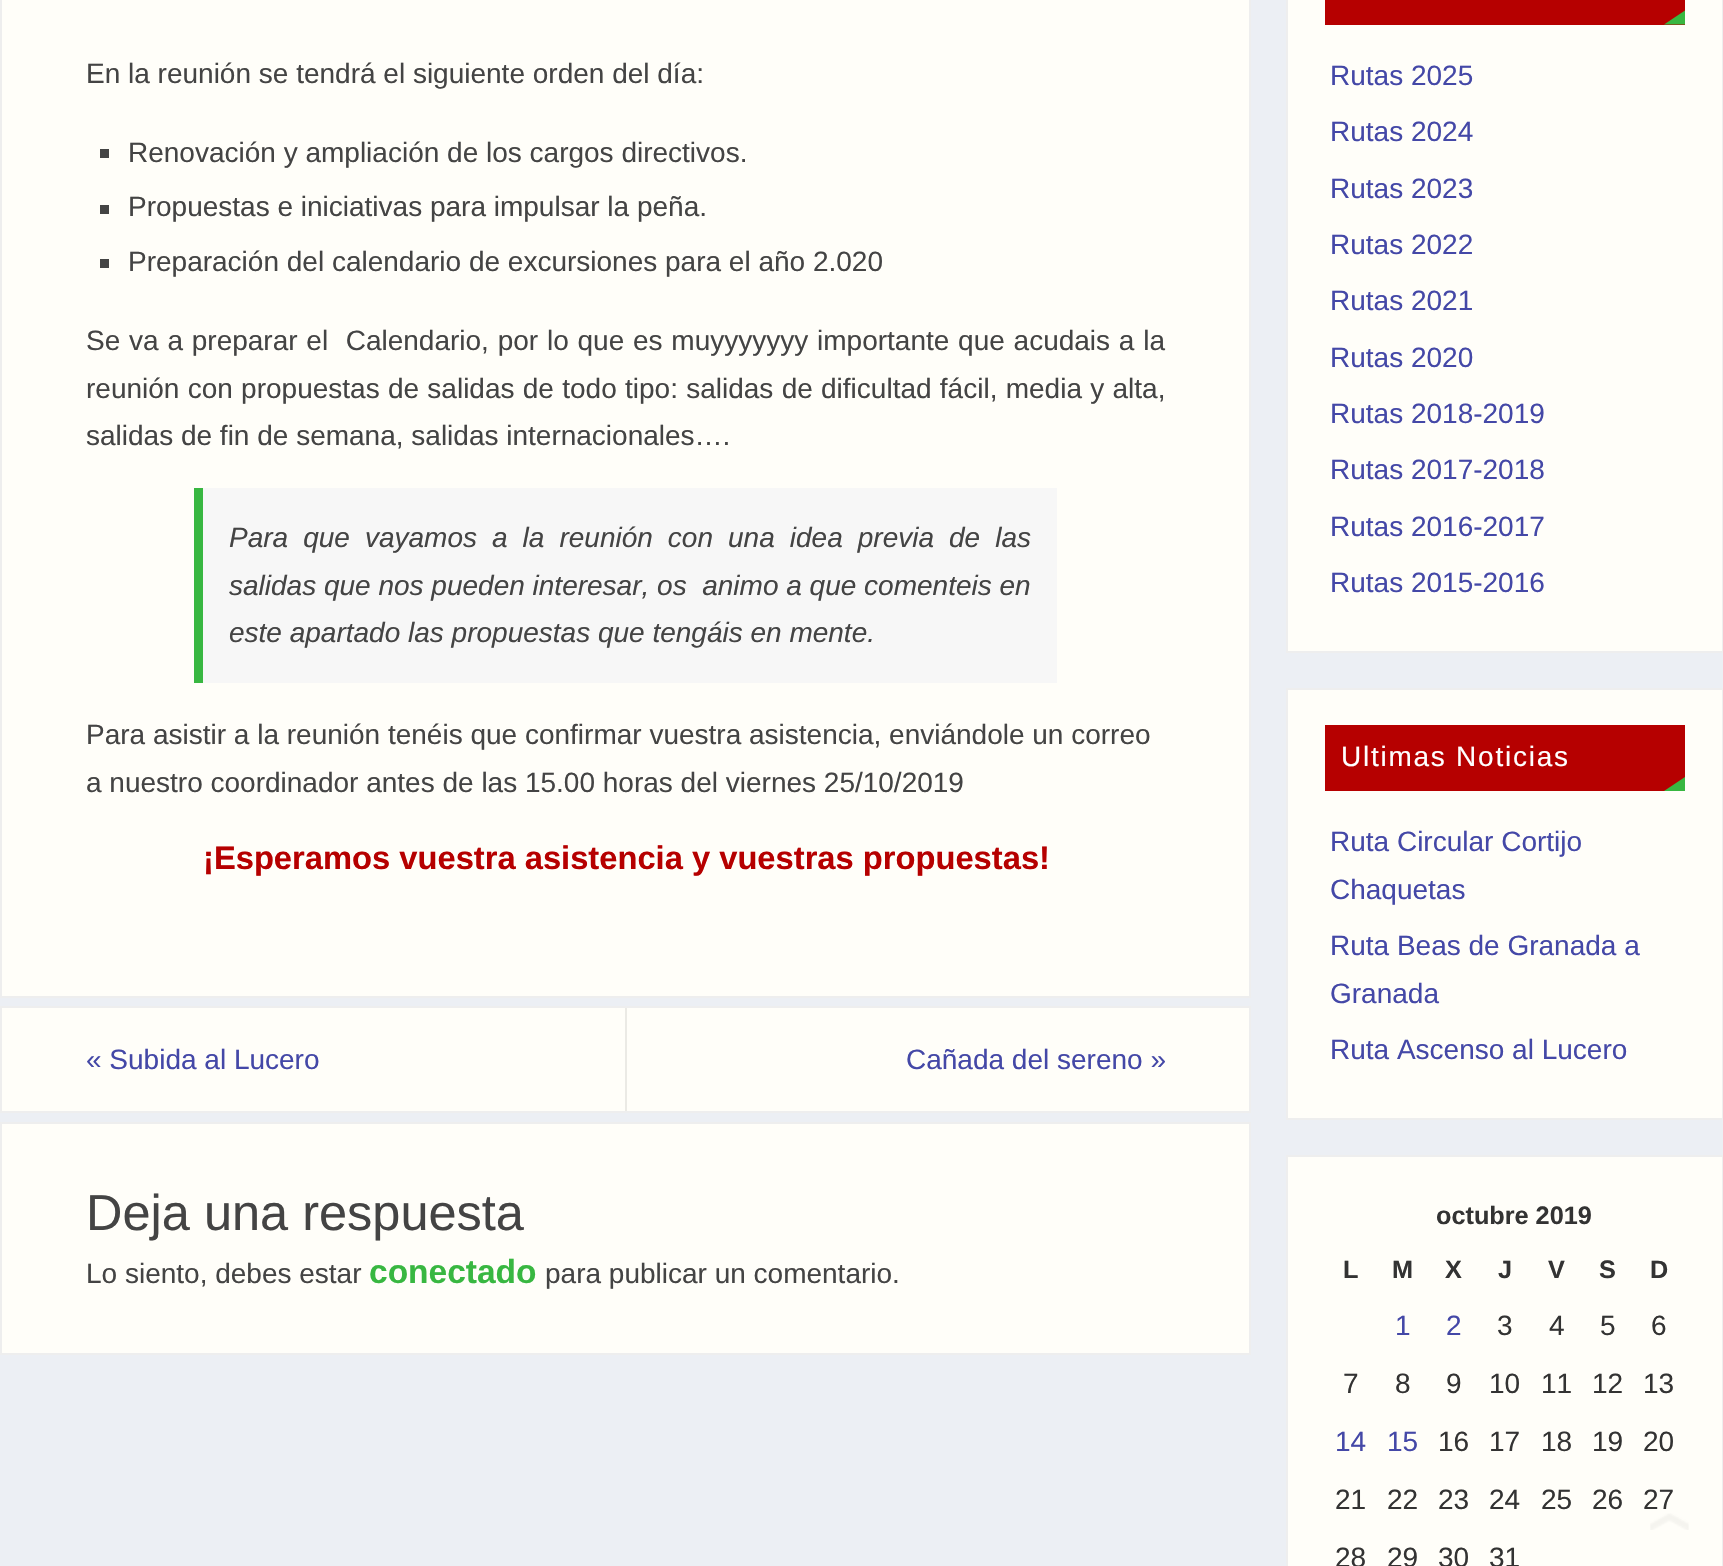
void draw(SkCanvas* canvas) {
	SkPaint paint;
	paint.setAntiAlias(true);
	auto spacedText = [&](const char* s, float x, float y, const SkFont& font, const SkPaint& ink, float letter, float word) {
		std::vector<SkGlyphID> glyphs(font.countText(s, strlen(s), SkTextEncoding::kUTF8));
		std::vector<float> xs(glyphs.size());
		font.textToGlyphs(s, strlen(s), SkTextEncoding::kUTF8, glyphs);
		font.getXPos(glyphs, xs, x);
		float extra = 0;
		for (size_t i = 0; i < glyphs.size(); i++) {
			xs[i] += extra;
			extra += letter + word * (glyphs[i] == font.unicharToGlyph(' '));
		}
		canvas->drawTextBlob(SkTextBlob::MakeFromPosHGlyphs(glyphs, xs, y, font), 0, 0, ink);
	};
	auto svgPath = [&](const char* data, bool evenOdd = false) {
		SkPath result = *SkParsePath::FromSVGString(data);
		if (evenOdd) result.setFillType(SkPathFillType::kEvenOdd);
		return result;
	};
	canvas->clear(0xffeceff4);
	paint.setColor(0xfffffef9);
	canvas->drawRect(SkRect::MakeXYWH(1, -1, 1249, 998), paint);
	paint.setStroke(true);
	paint.setStrokeWidth(2);
	paint.setColor(0xffeeeeee);
	canvas->drawRect(SkRect::MakeXYWH(1, -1, 1249, 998), paint);
	SkFont f1(fontMgr->matchFamilyStyle("Liberation Sans", SkFontStyle::Normal()), 28);
	f1.setSubpixel(true);
	paint.setStroke(false);
	paint.setColor(0xff444444);
	canvas->drawString("En la reunión se tendrá el siguiente orden del día:", 86, 83, f1, paint);
	canvas->drawRect(SkRect::MakeXYWH(100, 149, 9, 9), paint);
	canvas->drawString("Renovación y ampliación de los cargos directivos.", 128, 162, f1, paint);
	canvas->drawRect(SkRect::MakeXYWH(100, 205, 9, 9), paint);
	canvas->drawString("Propuestas e iniciativas para impulsar la peña.", 128, 216, f1, paint);
	canvas->drawRect(SkRect::MakeXYWH(100, 259, 9, 9), paint);
	canvas->drawString("Preparación del calendario de excursiones para el año 2.020", 128, 271, f1, paint);
	spacedText("Se va a preparar el  Calendario, por lo que es muyyyyyyy importante que acudais a la", 86, 350, f1, paint, 0, 1);
	spacedText("reunión con propuestas de salidas de todo tipo: salidas de dificultad fácil, media y alta,", 86, 398, f1, paint, 0, 0.5);
	canvas->drawString("salidas de fin de semana, salidas internacionales….", 86, 445, f1, paint);
	paint.setColor(0xfff7f7f7);
	canvas->drawRect(SkRect::MakeXYWH(203, 488, 854, 195), paint);
	paint.setColor(0xff38b741);
	canvas->drawRect(SkRect::MakeXYWH(194, 488, 9, 195), paint);
	SkFont f2(fontMgr->matchFamilyStyle("Liberation Sans", SkFontStyle::Italic()), 28);
	f2.setSubpixel(true);
	paint.setColor(0xff444444);
	spacedText("Para que vayamos a la reunión con una idea previa de las", 229, 547, f2, paint, 0, 7.25);
	canvas->drawString("salidas que nos pueden interesar, os  animo a que comenteis en", 229, 595, f2, paint);
	canvas->drawString("este apartado las propuestas que tengáis en mente.", 229, 642, f2, paint);
	canvas->drawString("Para asistir a la reunión tenéis que confirmar vuestra asistencia, enviándole un correo", 86, 744, f1, paint);
	canvas->drawString("a nuestro coordinador antes de las 15.00 horas del viernes 25/10/2019", 86, 792, f1, paint);
	SkFont f3(fontMgr->matchFamilyStyle("Liberation Sans", SkFontStyle::Bold()), 32.7);
	f3.setSubpixel(true);
	paint.setColor(0xffb60000);
	canvas->drawString("¡Esperamos vuestra asistencia y vuestras propuestas!", 203, 869, f3, paint);
	paint.setColor(0xfffffef9);
	canvas->drawRect(SkRect::MakeXYWH(1, 1007, 1249, 105), paint);
	paint.setStroke(true);
	paint.setColor(0xffeeeeee);
	canvas->drawRect(SkRect::MakeXYWH(1, 1007, 1249, 105), paint);
	paint.setStroke(false);
	paint.setColor(0xffebeae5);
	canvas->drawRect(SkRect::MakeXYWH(625, 1008, 2, 103), paint);
	paint.setColor(0xff4448a7);
	canvas->drawString("« Subida al Lucero", 86, 1069, f1, paint);
	canvas->drawString("Cañada del sereno »", 906, 1069, f1, paint);
	paint.setColor(0xfffffef9);
	canvas->drawRect(SkRect::MakeXYWH(1, 1123, 1249, 231), paint);
	paint.setStroke(true);
	paint.setColor(0xffeeeeee);
	canvas->drawRect(SkRect::MakeXYWH(1, 1123, 1249, 231), paint);
	SkFont f4(fontMgr->matchFamilyStyle("Liberation Sans", SkFontStyle::Normal()), 50.5);
	f4.setSubpixel(true);
	paint.setStroke(false);
	paint.setColor(0xff444444);
	canvas->drawString("Deja una respuesta", 86, 1230, f4, paint);
	canvas->drawString("Lo siento, debes estar", 86, 1283, f1, paint);
	SkFont f5(fontMgr->matchFamilyStyle("Liberation Sans", SkFontStyle::Bold()), 33.5);
	f5.setSubpixel(true);
	paint.setColor(0xff38b741);
	canvas->drawString("conectado", 369, 1283, f5, paint);
	paint.setColor(0xff444444);
	canvas->drawString("para publicar un comentario.", 545, 1283, f1, paint);
	paint.setColor(0xfffffef9);
	canvas->drawRect(SkRect::MakeXYWH(1287, -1, 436, 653), paint);
	paint.setStroke(true);
	paint.setColor(0xffeeeeee);
	canvas->drawRect(SkRect::MakeXYWH(1287, -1, 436, 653), paint);
	paint.setStroke(false);
	paint.setColor(0xffb60000);
	canvas->drawRect(SkRect::MakeXYWH(1325, 0, 360, 25), paint);
	paint.setColor(0xff38b741);
	canvas->drawPath(svgPath("M1685 24.5H1664L1685 10.5Z"), paint);
	paint.setColor(0xff4448a7);
	canvas->drawString("Rutas 2025", 1330, 85, f1, paint);
	canvas->drawString("Rutas 2024", 1330, 141, f1, paint);
	canvas->drawString("Rutas 2023", 1330, 198, f1, paint);
	canvas->drawString("Rutas 2022", 1330, 254, f1, paint);
	canvas->drawString("Rutas 2021", 1330, 310, f1, paint);
	canvas->drawString("Rutas 2020", 1330, 367, f1, paint);
	canvas->drawString("Rutas 2018-2019", 1330, 423, f1, paint);
	canvas->drawString("Rutas 2017-2018", 1330, 479, f1, paint);
	canvas->drawString("Rutas 2016-2017", 1330, 536, f1, paint);
	canvas->drawString("Rutas 2015-2016", 1330, 592, f1, paint);
	paint.setColor(0xfffffef9);
	canvas->drawRect(SkRect::MakeXYWH(1287, 689, 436, 430), paint);
	paint.setStroke(true);
	paint.setColor(0xffeeeeee);
	canvas->drawRect(SkRect::MakeXYWH(1287, 689, 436, 430), paint);
	paint.setStroke(false);
	paint.setColor(0xffb60000);
	canvas->drawRect(SkRect::MakeXYWH(1325, 725, 360, 66), paint);
	paint.setColor(0xffffffff);
	spacedText("Ultimas Noticias", 1341, 766, f1, paint, 1.75, 0);
	paint.setColor(0xff38b741);
	canvas->drawPath(svgPath("M1685 791H1664L1685 777Z"), paint);
	paint.setColor(0xff4448a7);
	canvas->drawString("Ruta Circular Cortijo", 1330, 851, f1, paint);
	canvas->drawString("Chaquetas", 1330, 899, f1, paint);
	canvas->drawString("Ruta Beas de Granada a", 1330, 955, f1, paint);
	canvas->drawString("Granada", 1330, 1003, f1, paint);
	canvas->drawString("Ruta Ascenso al Lucero", 1330, 1059, f1, paint);
	paint.setColor(0xfffffef9);
	canvas->drawRect(SkRect::MakeXYWH(1287, 1156, 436, 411), paint);
	paint.setStroke(true);
	paint.setColor(0xffeeeeee);
	canvas->drawRect(SkRect::MakeXYWH(1287, 1156, 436, 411), paint);
	SkFont f6(fontMgr->matchFamilyStyle("Liberation Sans", SkFontStyle::Bold()), 25.25);
	f6.setSubpixel(true);
	paint.setStroke(false);
	paint.setColor(0xff333333);
	canvas->drawString("octubre 2019", 1436, 1224, f6, paint);
	canvas->drawString("L", 1343, 1278, f6, paint);
	canvas->drawString("M", 1392, 1278, f6, paint);
	canvas->drawString("X", 1445, 1278, f6, paint);
	canvas->drawString("J", 1498, 1278, f6, paint);
	canvas->drawString("V", 1548, 1278, f6, paint);
	canvas->drawString("S", 1599, 1278, f6, paint);
	canvas->drawString("D", 1650, 1278, f6, paint);
	paint.setColor(0xff4448a7);
	canvas->drawString("1", 1395, 1335, f1, paint);
	canvas->drawString("2", 1446, 1335, f1, paint);
	paint.setColor(0xff333333);
	canvas->drawString("3", 1497, 1335, f1, paint);
	canvas->drawString("4", 1549, 1335, f1, paint);
	canvas->drawString("5", 1600, 1335, f1, paint);
	canvas->drawString("6", 1651, 1335, f1, paint);
	canvas->drawString("7", 1343, 1393, f1, paint);
	canvas->drawString("8", 1395, 1393, f1, paint);
	canvas->drawString("9", 1446, 1393, f1, paint);
	canvas->drawString("10", 1489, 1393, f1, paint);
	canvas->drawString("11", 1541, 1393, f1, paint);
	canvas->drawString("12", 1592, 1393, f1, paint);
	canvas->drawString("13", 1643, 1393, f1, paint);
	paint.setColor(0xff4448a7);
	canvas->drawString("14", 1335, 1451, f1, paint);
	canvas->drawString("15", 1387, 1451, f1, paint);
	paint.setColor(0xff333333);
	canvas->drawString("16", 1438, 1451, f1, paint);
	canvas->drawString("17", 1489, 1451, f1, paint);
	canvas->drawString("18", 1541, 1451, f1, paint);
	canvas->drawString("19", 1592, 1451, f1, paint);
	canvas->drawString("20", 1643, 1451, f1, paint);
	canvas->drawString("21", 1335, 1509, f1, paint);
	canvas->drawString("22", 1387, 1509, f1, paint);
	canvas->drawString("23", 1438, 1509, f1, paint);
	canvas->drawString("24", 1489, 1509, f1, paint);
	canvas->drawString("25", 1541, 1509, f1, paint);
	canvas->drawString("26", 1592, 1509, f1, paint);
	canvas->drawString("27", 1643, 1509, f1, paint);
	canvas->drawString("28", 1335, 1567, f1, paint);
	canvas->drawString("29", 1387, 1567, f1, paint);
	canvas->drawString("30", 1438, 1567, f1, paint);
	canvas->drawString("31", 1489, 1567, f1, paint);
	canvas->drawImageRect(SkImages::DeferredFromEncodedData(SkData::MakeFromFileName("img1.png")), SkRect::MakeXYWH(1650, 1513, 39, 17), SkSamplingOptions());
}
